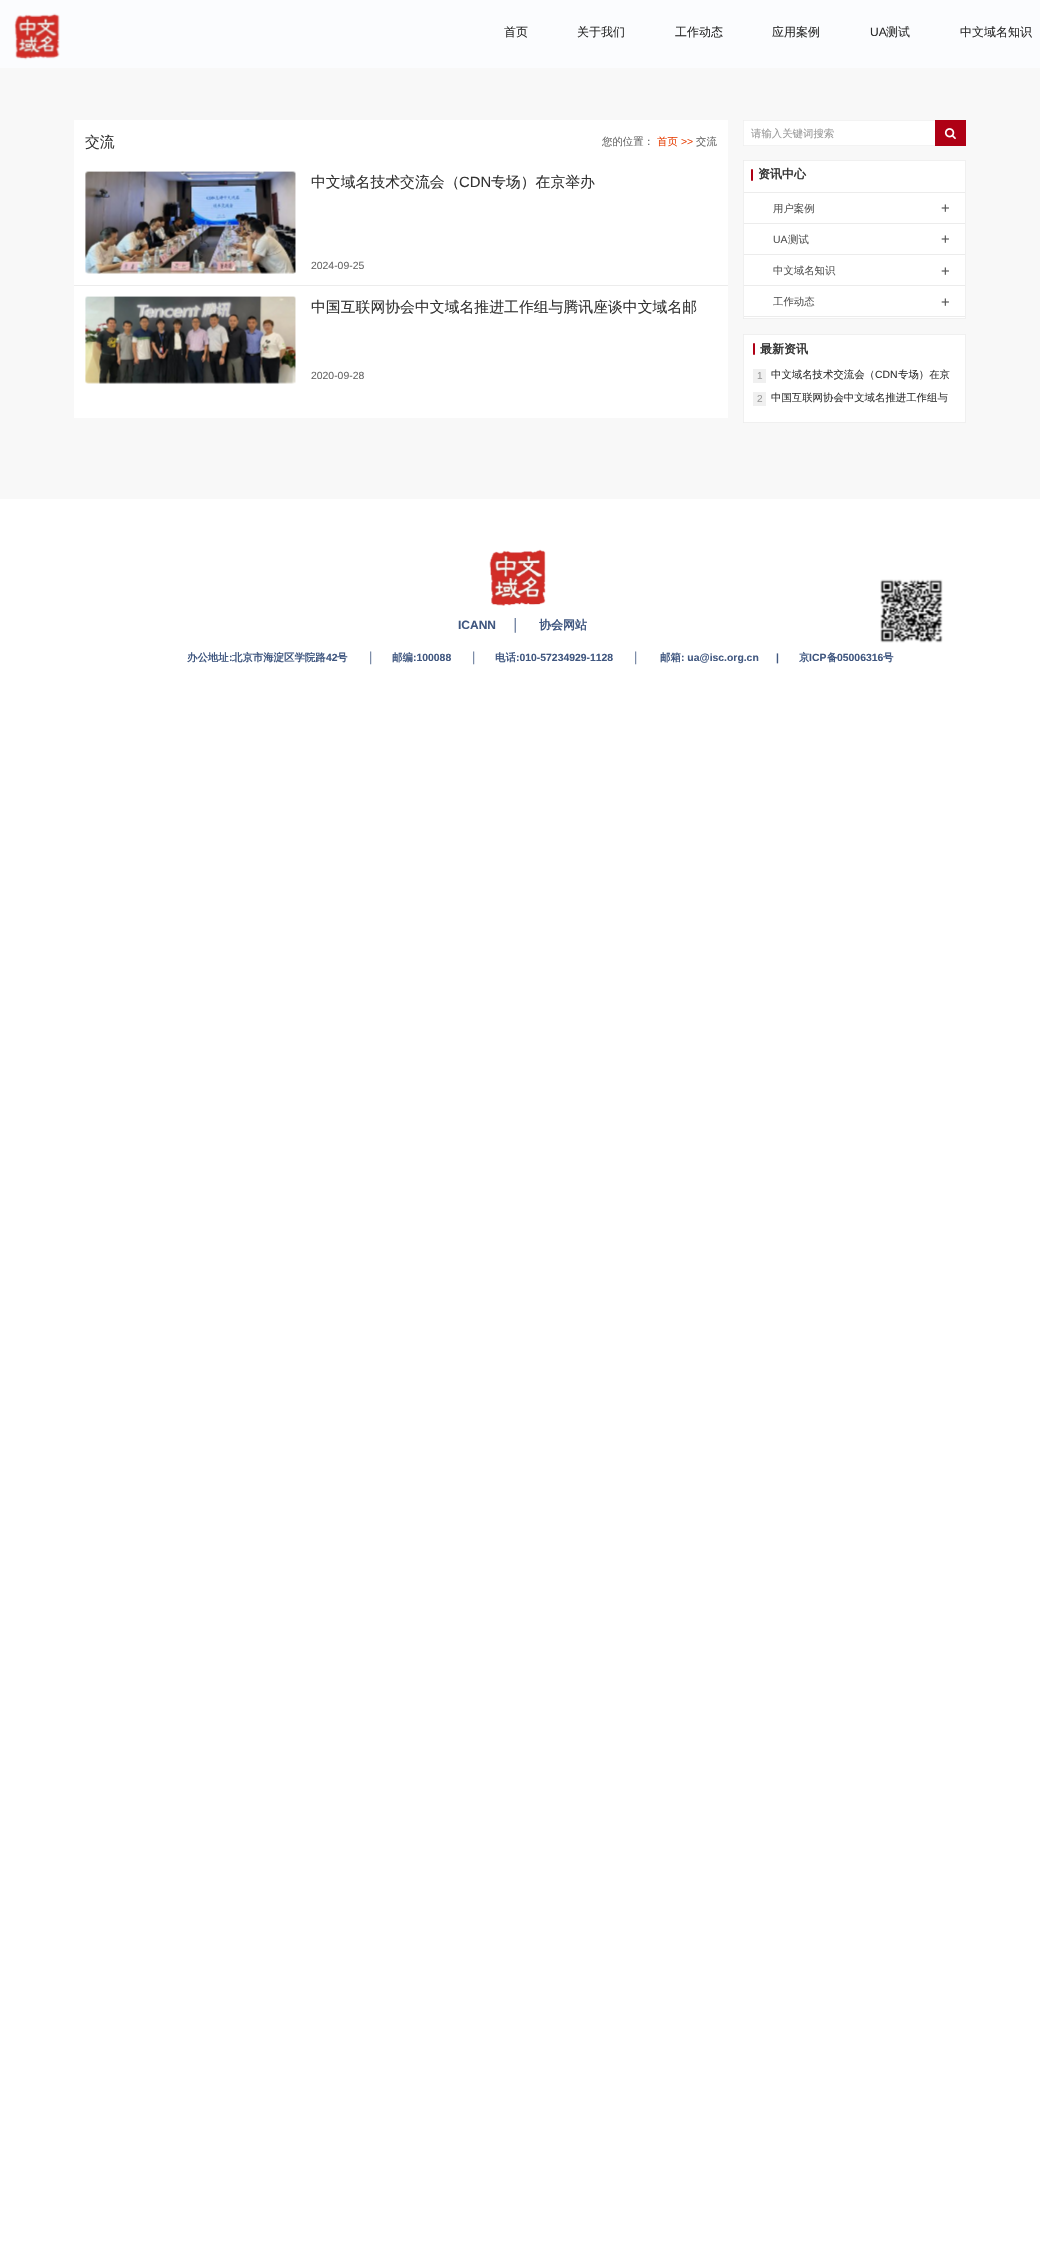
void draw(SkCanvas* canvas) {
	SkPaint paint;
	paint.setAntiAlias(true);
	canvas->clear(0xffffffff);
	paint.setColor(0xfffbfcfe);
	canvas->drawRect(SkRect::MakeXYWH(0, 0, 1040, 68), paint);
	canvas->drawImageRect(SkImages::DeferredFromEncodedData(SkData::MakeFromFileName("img1.png")), SkRect::MakeXYWH(14, 13, 46, 47), SkSamplingOptions());
	SkFont f1(fontMgr->matchFamilyStyle("WenQuanYi Zen Hei", SkFontStyle(500, SkFontStyle::kNormal_Width, SkFontStyle::kUpright_Slant)), 12);
	f1.setSubpixel(true);
	paint.setColor(0xff2c2c2c);
	canvas->drawString("首页", 504, 36, f1, paint);
	canvas->drawString("关于我们", 577, 36, f1, paint);
	canvas->drawString("工作动态", 675, 36, f1, paint);
	canvas->drawString("应用案例", 772, 36, f1, paint);
	SkFont f2(fontMgr->matchFamilyStyle("Liberation Sans", SkFontStyle::Normal()), 12);
	f2.setSubpixel(true);
	canvas->drawString("UA", 870, 36, f2, paint);
	canvas->drawString("测试", 886, 36, f1, paint);
	canvas->drawString("中文域名知识", 960, 36, f1, paint);
	paint.setColor(0xfff8f8f8);
	canvas->drawRect(SkRect::MakeXYWH(0, 68, 1040, 431), paint);
	paint.setColor(0xffffffff);
	canvas->drawRect(SkRect::MakeXYWH(74, 120, 654, 298), paint);
	SkFont f3(fontMgr->matchFamilyStyle("WenQuanYi Zen Hei", SkFontStyle(500, SkFontStyle::kNormal_Width, SkFontStyle::kUpright_Slant)), 14.85);
	f3.setSubpixel(true);
	paint.setColor(0xff333333);
	canvas->drawString("交流", 85, 147, f3, paint);
	SkFont f4(fontMgr->matchFamilyStyle("WenQuanYi Zen Hei", SkFontStyle(500, SkFontStyle::kNormal_Width, SkFontStyle::kUpright_Slant)), 10.4);
	f4.setSubpixel(true);
	paint.setColor(0xff666666);
	canvas->drawString("您的位置：", 602, 145, f4, paint);
	paint.setColor(0xffe74208);
	canvas->drawString("首页", 657, 145, f4, paint);
	SkFont f5(fontMgr->matchFamilyStyle("Liberation Sans", SkFontStyle::Normal()), 10.4);
	f5.setSubpixel(true);
	canvas->drawString(">>", 681, 145, f5, paint);
	paint.setColor(0xff666666);
	canvas->drawString("交流", 696, 145, f4, paint);
	paint.setColor(0xffececec);
	canvas->drawRect(SkRect::MakeXYWH(74, 285, 654, 1), paint);
	canvas->drawImageRect(SkImages::DeferredFromEncodedData(SkData::MakeFromFileName("img2.png")), SkRect::MakeXYWH(85, 171, 211, 103), SkSamplingOptions());
	paint.setColor(0xff333333);
	canvas->drawString("中文域名技术交流会（", 311, 187, f3, paint);
	SkFont f6(fontMgr->matchFamilyStyle("Liberation Sans", SkFontStyle::Normal()), 14.85);
	f6.setSubpixel(true);
	canvas->drawString("CDN", 459, 187, f6, paint);
	canvas->drawString("专场）在京举办", 491, 187, f3, paint);
	paint.setColor(0xff666666);
	canvas->drawString("2024-09-25", 311, 269, f5, paint);
	canvas->drawImageRect(SkImages::DeferredFromEncodedData(SkData::MakeFromFileName("img3.png")), SkRect::MakeXYWH(85, 296, 211, 88), SkSamplingOptions());
	paint.setColor(0xff333333);
	canvas->drawString("中国互联网协会中文域名推进工作组与腾讯座谈中文域名邮", 311, 312, f3, paint);
	paint.setColor(0xff666666);
	canvas->drawString("2020-09-28", 311, 379, f5, paint);
	paint.setColor(0xffffffff);
	canvas->drawRect(SkRect::MakeXYWH(743, 120, 192, 26), paint);
	paint.setStroke(true);
	paint.setStrokeWidth(0.7);
	paint.setColor(0xffefefef);
	canvas->drawRect(SkRect::MakeXYWH(743.35, 120.35, 222.3, 25.3), paint);
	paint.setStroke(false);
	paint.setColor(0xff999999);
	canvas->drawString("请输入关键词搜索", 751, 137, f4, paint);
	paint.setColor(0xffaf0015);
	canvas->drawRect(SkRect::MakeXYWH(935, 120, 31, 26), paint);
	canvas->drawImageRect(SkImages::DeferredFromEncodedData(SkData::MakeFromFileName("img4.png")), SkRect::MakeXYWH(944, 128, 12, 12), SkSamplingOptions());
	paint.setColor(0xffffffff);
	canvas->drawRect(SkRect::MakeXYWH(743.35, 160.35, 222.3, 158.3), paint);
	paint.setStroke(true);
	paint.setColor(0xffececec);
	canvas->drawRect(SkRect::MakeXYWH(743.35, 160.35, 222.3, 158.3), paint);
	paint.setStroke(false);
	canvas->drawRect(SkRect::MakeXYWH(744, 192, 221, 1), paint);
	paint.setColor(0xffaf0015);
	canvas->drawRoundRect(SkRect::MakeXYWH(751, 169, 2, 12), 1, 1, paint);
	SkFont f7(fontMgr->matchFamilyStyle("WenQuanYi Zen Hei", SkFontStyle::Bold()), 12);
	f7.setSubpixel(true);
	paint.setColor(0xff333333);
	canvas->drawString("资讯中心", 758, 178, f7, paint);
	paint.setColor(0xffececec);
	canvas->drawRect(SkRect::MakeXYWH(744, 223, 221, 1), paint);
	paint.setColor(0xff555555);
	canvas->drawString("用户案例", 773, 212, f4, paint);
	canvas->drawString("+", 941, 213, f6, paint);
	paint.setColor(0xffececec);
	canvas->drawRect(SkRect::MakeXYWH(744, 254, 221, 1), paint);
	paint.setColor(0xff555555);
	canvas->drawString("UA", 773, 243, f5, paint);
	canvas->drawString("测试", 788, 243, f4, paint);
	canvas->drawString("+", 941, 244, f6, paint);
	paint.setColor(0xffececec);
	canvas->drawRect(SkRect::MakeXYWH(744, 285, 221, 1), paint);
	paint.setColor(0xff555555);
	canvas->drawString("中文域名知识", 773, 274, f4, paint);
	canvas->drawString("+", 941, 276, f6, paint);
	paint.setColor(0xffececec);
	canvas->drawRect(SkRect::MakeXYWH(744, 316, 221, 1), paint);
	paint.setColor(0xff555555);
	canvas->drawString("工作动态", 773, 305, f4, paint);
	canvas->drawString("+", 941, 307, f6, paint);
	paint.setColor(0xffffffff);
	canvas->drawRect(SkRect::MakeXYWH(743.35, 334.35, 222.3, 88.3), paint);
	paint.setStroke(true);
	paint.setColor(0xffececec);
	canvas->drawRect(SkRect::MakeXYWH(743.35, 334.35, 222.3, 88.3), paint);
	paint.setStroke(false);
	paint.setColor(0xffaf0015);
	canvas->drawRoundRect(SkRect::MakeXYWH(753, 343, 2, 12), 1, 1, paint);
	paint.setColor(0xff333333);
	canvas->drawString("最新资讯", 760, 353, f7, paint);
	paint.setColor(0xfff0f0f0);
	canvas->drawRect(SkRect::MakeXYWH(753, 369, 13, 14), paint);
	SkFont f8(fontMgr->matchFamilyStyle("Liberation Sans", SkFontStyle::Normal()), 10);
	f8.setSubpixel(true);
	paint.setColor(0xff999999);
	canvas->drawString("1", 757, 379, f8, paint);
	paint.setColor(0xff333333);
	canvas->drawString("中文域名技术交流会（", 771, 378, f4, paint);
	canvas->drawString("CDN", 875, 378, f5, paint);
	canvas->drawString("专场）在京", 898, 378, f4, paint);
	paint.setColor(0xfff0f0f0);
	canvas->drawRect(SkRect::MakeXYWH(753, 392, 13, 14), paint);
	paint.setColor(0xff999999);
	canvas->drawString("2", 757, 402, f8, paint);
	paint.setColor(0xff333333);
	canvas->drawString("中国互联网协会中文域名推进工作组与", 771, 401, f4, paint);
	canvas->drawImageRect(SkImages::DeferredFromEncodedData(SkData::MakeFromFileName("img5.png")), SkRect::MakeXYWH(489, 549, 57, 57), SkSamplingOptions());
	canvas->drawImageRect(SkImages::DeferredFromEncodedData(SkData::MakeFromFileName("img6.png")), SkRect::MakeXYWH(880, 579, 63, 64), SkSamplingOptions());
	SkFont f9(fontMgr->matchFamilyStyle("Liberation Sans", SkFontStyle::Bold()), 12);
	f9.setSubpixel(true);
	paint.setColor(0xff405780);
	canvas->drawString("ICANN", 458, 629, f9, paint);
	canvas->drawString("│", 512, 629, f9, paint);
	canvas->drawString("协会网站", 539, 629, f7, paint);
	SkFont f10(fontMgr->matchFamilyStyle("WenQuanYi Zen Hei", SkFontStyle::Bold()), 10.4);
	f10.setSubpixel(true);
	canvas->drawString("办公地址", 187, 661, f10, paint);
	SkFont f11(fontMgr->matchFamilyStyle("Liberation Sans", SkFontStyle::Bold()), 10.4);
	f11.setSubpixel(true);
	canvas->drawString(":", 229, 661, f11, paint);
	canvas->drawString("北京市海淀区学院路", 232, 661, f10, paint);
	canvas->drawString("42", 326, 661, f11, paint);
	canvas->drawString("号", 337, 661, f10, paint);
	canvas->drawString("│", 368, 661, f11, paint);
	canvas->drawString("邮编", 392, 661, f10, paint);
	canvas->drawString(":100088", 413, 661, f11, paint);
	canvas->drawString("│", 471, 661, f11, paint);
	canvas->drawString("电话", 495, 661, f10, paint);
	canvas->drawString(":010-57234929-1128", 516, 661, f11, paint);
	canvas->drawString("│", 633, 661, f11, paint);
	canvas->drawString("邮箱", 660, 661, f10, paint);
	canvas->drawString(": ua@isc.org.cn      |", 681, 661, f11, paint);
	canvas->drawString("京", 799, 661, f10, paint);
	canvas->drawString("ICP", 809, 661, f11, paint);
	canvas->drawString("备", 827, 661, f10, paint);
	canvas->drawString("05006316", 837, 661, f11, paint);
	canvas->drawString("号", 883, 661, f10, paint);
}
